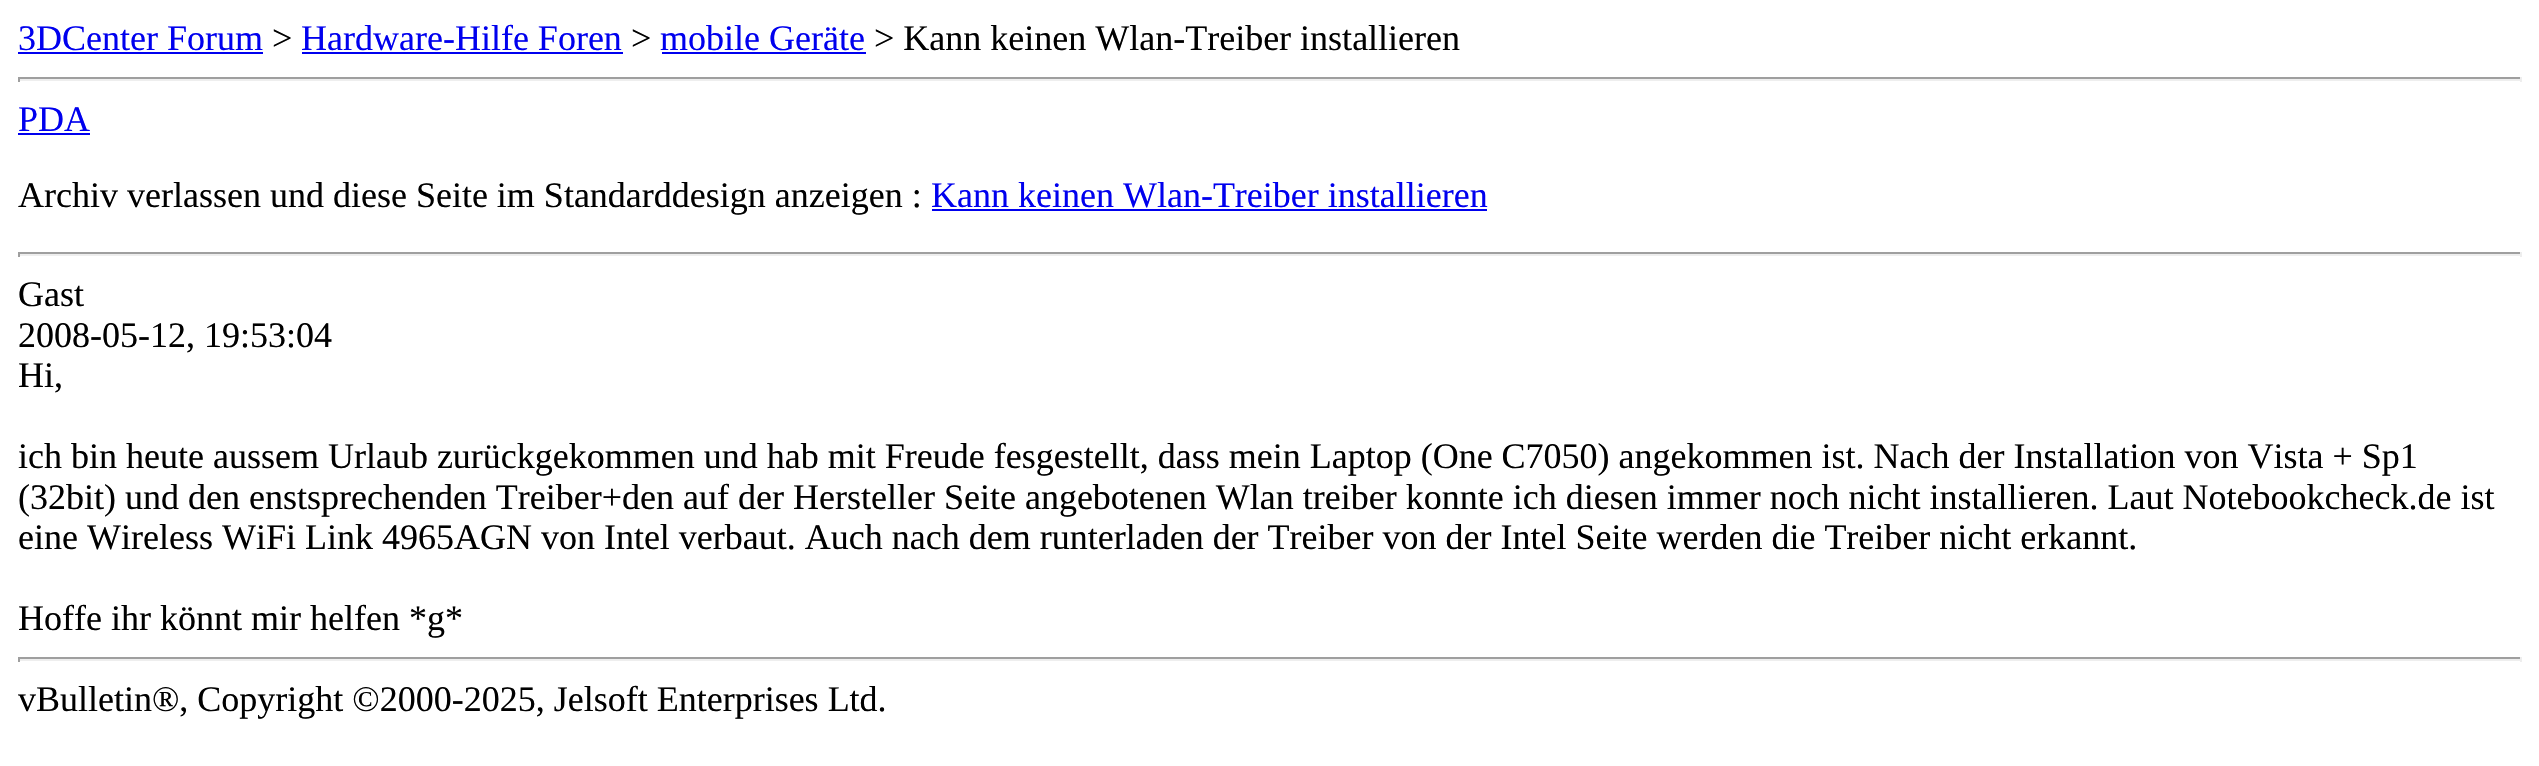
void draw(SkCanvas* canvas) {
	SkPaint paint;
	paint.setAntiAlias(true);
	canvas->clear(0xffffffff);
	SkFont f1(fontMgr->matchFamilyStyle("Liberation Serif", SkFontStyle::Normal()), 36);
	f1.setSubpixel(true);
	paint.setColor(0xff0000ee);
	canvas->drawString("3DCenter Forum", 18, 50, f1, paint);
	canvas->drawRect(SkRect::MakeXYWH(18, 52, 245, 2), paint);
	paint.setColor(0xff000000);
	canvas->drawString(">", 272, 50, f1, paint);
	paint.setColor(0xff0000ee);
	canvas->drawString("Hardware-Hilfe Foren", 301, 50, f1, paint);
	canvas->drawRect(SkRect::MakeXYWH(302, 52, 321, 2), paint);
	paint.setColor(0xff000000);
	canvas->drawString(">", 631, 50, f1, paint);
	paint.setColor(0xff0000ee);
	canvas->drawString("mobile Geräte", 660, 50, f1, paint);
	canvas->drawRect(SkRect::MakeXYWH(662, 52, 204, 2), paint);
	paint.setColor(0xff000000);
	canvas->drawString("> Kann keinen Wlan-Treiber installieren", 874, 50, f1, paint);
	paint.setColor(0xff9f9f9f);
	canvas->drawRect(SkRect::MakeXYWH(18, 77, 2504, 2), paint);
	paint.setColor(0xffeeeeee);
	canvas->drawRect(SkRect::MakeXYWH(2520, 77, 2, 5), paint);
	canvas->drawRect(SkRect::MakeXYWH(18, 79, 2504, 2), paint);
	paint.setColor(0xff9f9f9f);
	canvas->drawRect(SkRect::MakeXYWH(18, 77, 2, 5), paint);
	paint.setColor(0xff0000ee);
	canvas->drawString("PDA", 18, 131, f1, paint);
	canvas->drawRect(SkRect::MakeXYWH(18, 133, 72, 2), paint);
	paint.setColor(0xff000000);
	canvas->drawString("Archiv verlassen und diese Seite im Standarddesign anzeigen :", 18, 207, f1, paint);
	paint.setColor(0xff0000ee);
	canvas->drawString("Kann keinen Wlan-Treiber installieren", 931, 207, f1, paint);
	canvas->drawRect(SkRect::MakeXYWH(932, 209, 555, 2), paint);
	paint.setColor(0xff9f9f9f);
	canvas->drawRect(SkRect::MakeXYWH(18, 252, 2504, 2), paint);
	paint.setColor(0xffeeeeee);
	canvas->drawRect(SkRect::MakeXYWH(2520, 252, 2, 5), paint);
	canvas->drawRect(SkRect::MakeXYWH(18, 254, 2504, 2), paint);
	paint.setColor(0xff9f9f9f);
	canvas->drawRect(SkRect::MakeXYWH(18, 252, 2, 5), paint);
	paint.setColor(0xff000000);
	canvas->drawString("Gast", 18, 306, f1, paint);
	canvas->drawString("2008-05-12, 19:53:04", 18, 347, f1, paint);
	canvas->drawString("Hi,", 18, 387, f1, paint);
	canvas->drawString("ich bin heute aussem Urlaub zurückgekommen und hab mit Freude fesgestellt, dass mein Laptop (One C7050) angekommen ist. Nach der Installation von Vista + Sp1", 18, 468, f1, paint);
	canvas->drawString("(32bit) und den enstsprechenden Treiber+den auf der Hersteller Seite angebotenen Wlan treiber konnte ich diesen immer noch nicht installieren. Laut Notebookcheck.de ist", 18, 509, f1, paint);
	canvas->drawString("eine Wireless WiFi Link 4965AGN von Intel verbaut. Auch nach dem runterladen der Treiber von der Intel Seite werden die Treiber nicht erkannt.", 18, 549, f1, paint);
	canvas->drawString("Hoffe ihr könnt mir helfen *g*", 18, 630, f1, paint);
	paint.setColor(0xff9f9f9f);
	canvas->drawRect(SkRect::MakeXYWH(18, 657, 2504, 2), paint);
	paint.setColor(0xffeeeeee);
	canvas->drawRect(SkRect::MakeXYWH(2520, 657, 2, 5), paint);
	canvas->drawRect(SkRect::MakeXYWH(18, 659, 2504, 2), paint);
	paint.setColor(0xff9f9f9f);
	canvas->drawRect(SkRect::MakeXYWH(18, 657, 2, 5), paint);
	paint.setColor(0xff000000);
	canvas->drawString("vBulletin®, Copyright ©2000-2025, Jelsoft Enterprises Ltd.", 18, 711, f1, paint);
}
